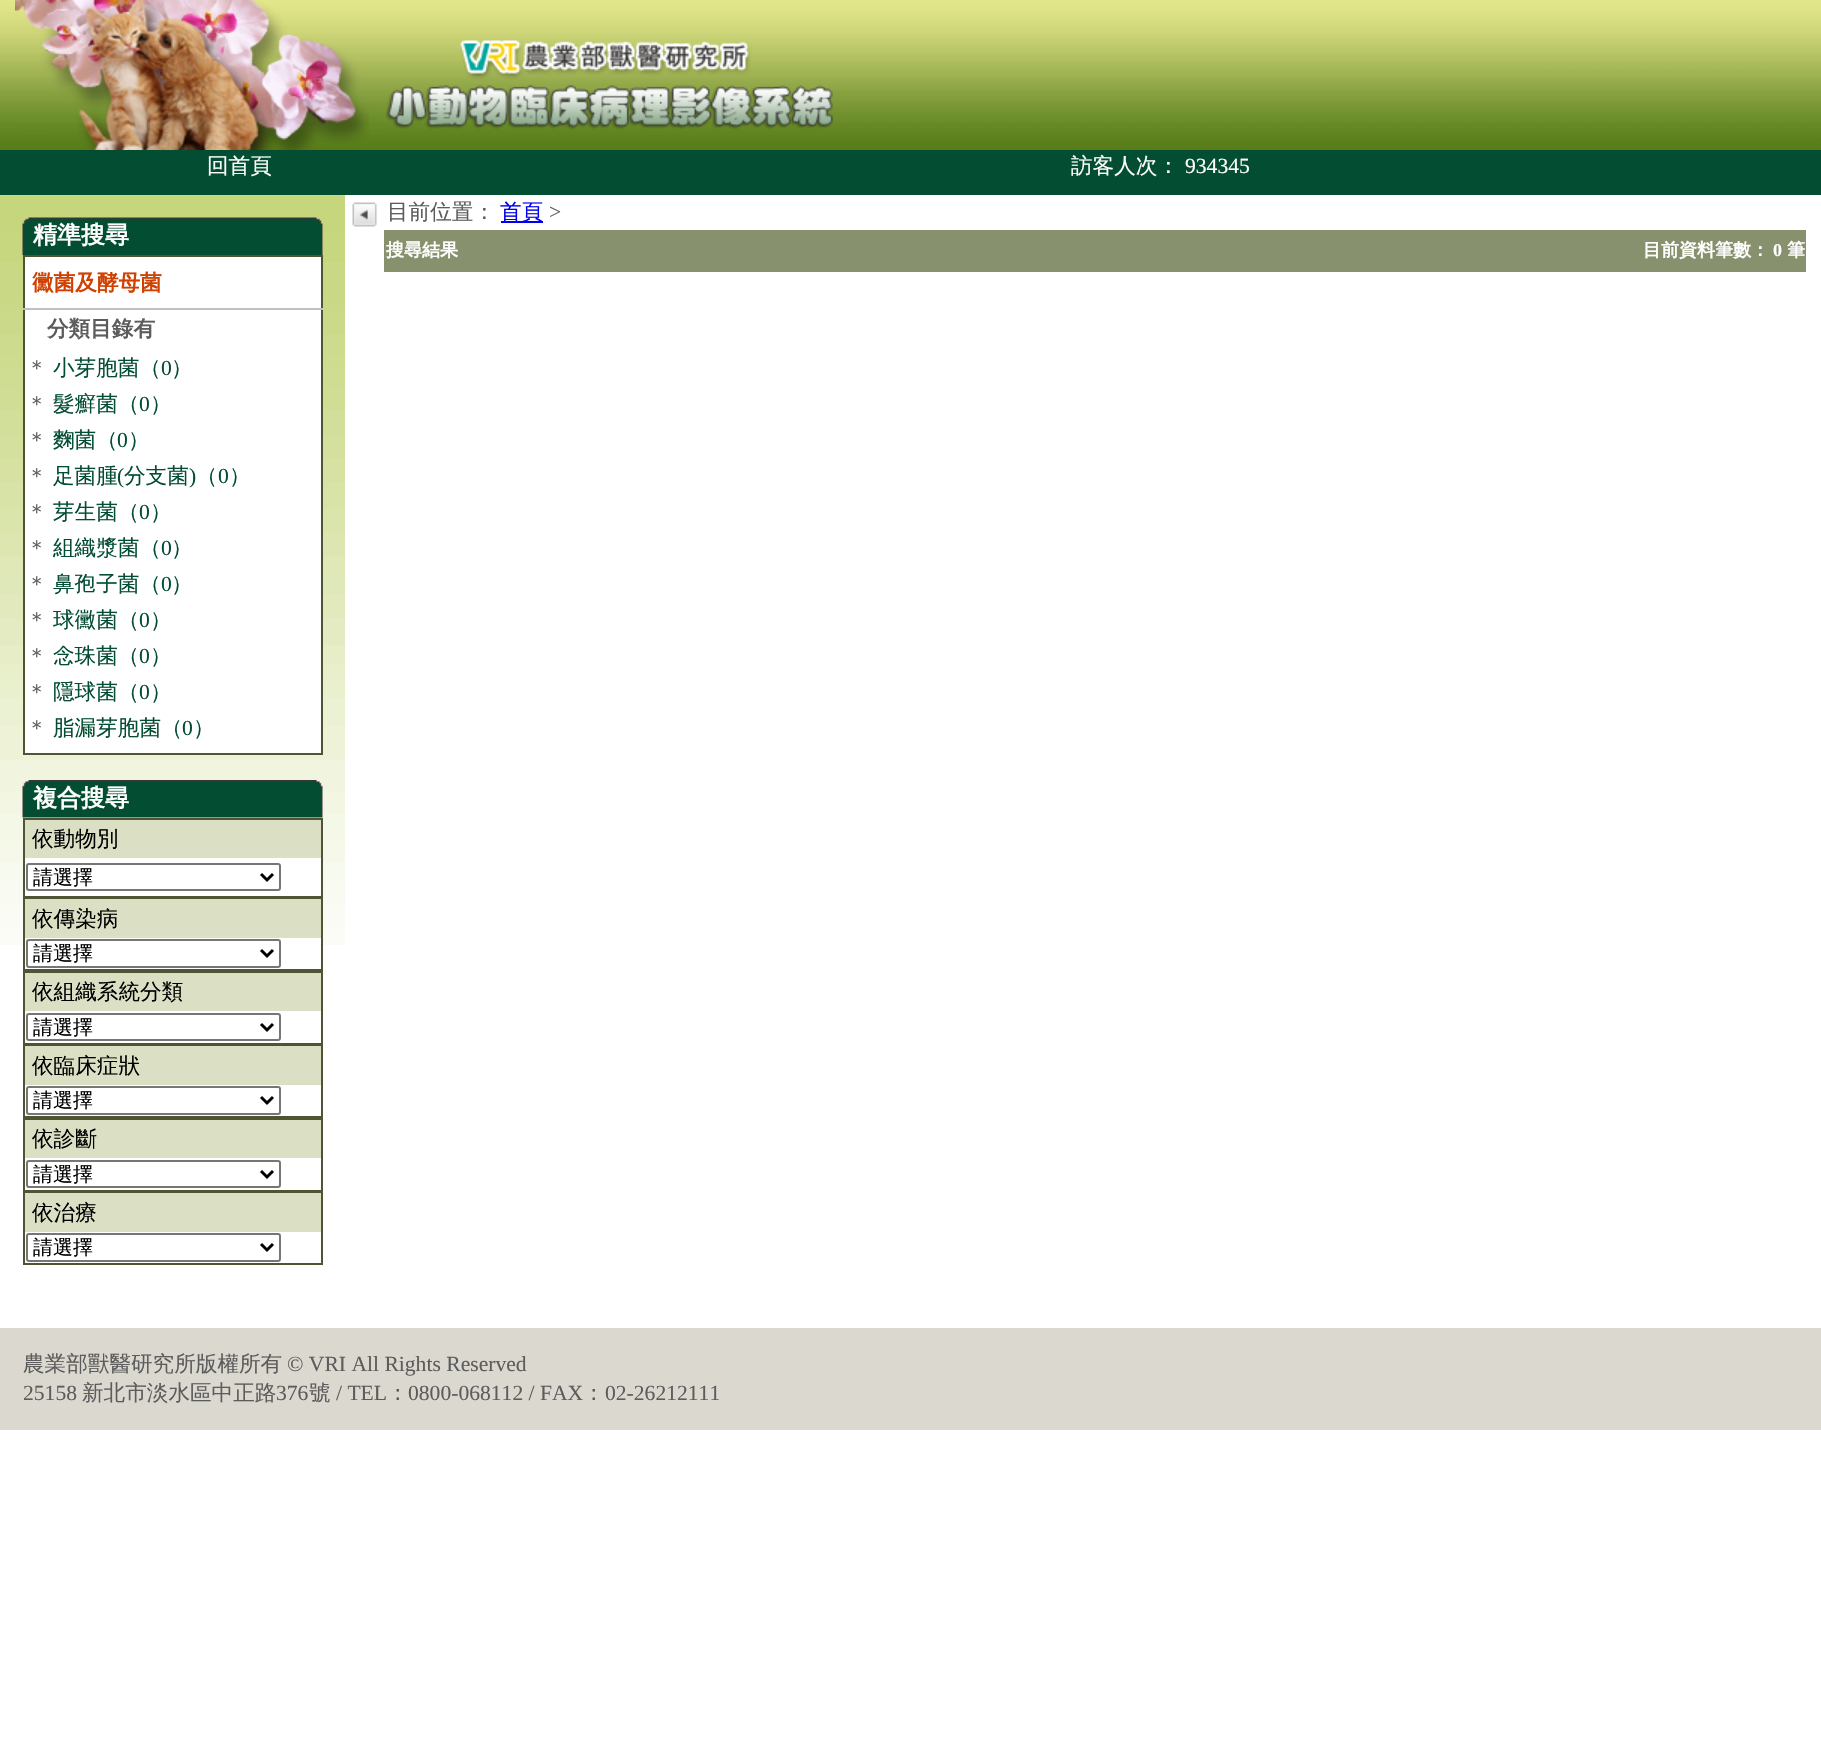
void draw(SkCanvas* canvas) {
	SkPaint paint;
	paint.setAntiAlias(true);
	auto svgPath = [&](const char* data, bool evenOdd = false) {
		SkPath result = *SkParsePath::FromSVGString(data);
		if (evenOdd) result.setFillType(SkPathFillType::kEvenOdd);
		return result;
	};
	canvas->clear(0xffffffff);
	canvas->drawImageRect(SkImages::DeferredFromEncodedData(SkData::MakeFromFileName("img1.png")), SkRect::MakeXYWH(0, 0, 1821, 150), SkSamplingOptions());
	canvas->drawImageRect(SkImages::DeferredFromEncodedData(SkData::MakeFromFileName("img2.png")), SkRect::MakeXYWH(385, 40, 448, 90), SkSamplingOptions());
	canvas->drawImageRect(SkImages::DeferredFromEncodedData(SkData::MakeFromFileName("img3.png")), SkRect::MakeXYWH(15, 0, 354, 150), SkSamplingOptions());
	paint.setColor(0xff034d32);
	canvas->drawRect(SkRect::MakeXYWH(0, 150, 1821, 45), paint);
	SkFont f1(fontMgr->matchFamilyStyle("WenQuanYi Zen Hei", SkFontStyle(500, SkFontStyle::kNormal_Width, SkFontStyle::kUpright_Slant)), 21.6);
	f1.setSubpixel(true);
	paint.setColor(0xffffffff);
	canvas->drawString("回首頁", 207, 173, f1, paint);
	canvas->drawString("訪客人次：", 1071, 173, f1, paint);
	SkFont f2(fontMgr->matchFamilyStyle("Liberation Serif", SkFontStyle::Normal()), 21.6);
	f2.setSubpixel(true);
	canvas->drawString("934345", 1185, 173, f2, paint);
	canvas->drawImageRect(SkImages::DeferredFromEncodedData(SkData::MakeFromFileName("img4.png")), SkRect::MakeXYWH(352, 202, 25, 25), SkSamplingOptions());
	paint.setColor(0xff5d5c5c);
	canvas->drawString("目前位置：", 387, 219, f1, paint);
	paint.setColor(0xff0000ee);
	canvas->drawRect(SkRect::MakeXYWH(501, 221, 42, 2), paint);
	canvas->drawString("首頁", 500, 219, f1, paint);
	paint.setColor(0xff5d5c5c);
	canvas->drawString(">", 549, 219, f2, paint);
	paint.setColor(0xff88916d);
	canvas->drawRect(SkRect::MakeXYWH(384, 230, 1422, 42), paint);
	SkFont f3(fontMgr->matchFamilyStyle("WenQuanYi Zen Hei", SkFontStyle::Bold()), 18);
	f3.setSubpixel(true);
	paint.setColor(0xffffffff);
	canvas->drawString("搜尋結果", 386, 256, f3, paint);
	canvas->drawString("目前資料筆數：", 1643, 256, f3, paint);
	SkFont f4(fontMgr->matchFamilyStyle("Liberation Serif", SkFontStyle::Bold()), 18);
	f4.setSubpixel(true);
	canvas->drawString("0", 1773, 256, f4, paint);
	canvas->drawString("筆", 1787, 256, f3, paint);
	canvas->drawImageRect(SkImages::DeferredFromEncodedData(SkData::MakeFromFileName("img5.png")), SkRect::MakeXYWH(0, 195, 345, 750), SkSamplingOptions());
	canvas->drawImageRect(SkImages::DeferredFromEncodedData(SkData::MakeFromFileName("img6.png")), SkRect::MakeXYWH(22, 217, 11, 38), SkSamplingOptions());
	canvas->drawImageRect(SkImages::DeferredFromEncodedData(SkData::MakeFromFileName("img7.png")), SkRect::MakeXYWH(33, 217, 279, 38), SkSamplingOptions());
	SkFont f5(fontMgr->matchFamilyStyle("WenQuanYi Zen Hei", SkFontStyle::Bold()), 24);
	f5.setSubpixel(true);
	canvas->drawString("精準搜尋", 33, 243, f5, paint);
	canvas->drawImageRect(SkImages::DeferredFromEncodedData(SkData::MakeFromFileName("img8.png")), SkRect::MakeXYWH(312, 217, 11, 38), SkSamplingOptions());
	canvas->drawRect(SkRect::MakeXYWH(25, 257, 296, 496), paint);
	paint.setColor(0xff4f5534);
	canvas->drawRect(SkRect::MakeXYWH(23, 255, 300, 2), paint);
	canvas->drawRect(SkRect::MakeXYWH(321, 255, 2, 500), paint);
	canvas->drawRect(SkRect::MakeXYWH(23, 753, 300, 2), paint);
	canvas->drawRect(SkRect::MakeXYWH(23, 255, 2, 500), paint);
	paint.setColor(0xffc0c0c0);
	canvas->drawRect(SkRect::MakeXYWH(23, 308, 300, 2), paint);
	SkFont f6(fontMgr->matchFamilyStyle("WenQuanYi Zen Hei", SkFontStyle::Bold()), 21.6);
	f6.setSubpixel(true);
	paint.setColor(0xffd04000);
	canvas->drawString("黴菌及酵母菌", 32, 290, f6, paint);
	paint.setColor(0xff5d5c5c);
	canvas->drawString("分類目錄有", 47, 336, f6, paint);
	canvas->drawString("＊", 26, 375, f1, paint);
	paint.setColor(0xff034d32);
	canvas->drawString("小芽胞菌（", 53, 375, f1, paint);
	canvas->drawString("0", 161, 375, f2, paint);
	canvas->drawString("）", 171, 375, f1, paint);
	paint.setColor(0xff5d5c5c);
	canvas->drawString("＊", 26, 411, f1, paint);
	paint.setColor(0xff034d32);
	canvas->drawString("髮癬菌（", 53, 411, f1, paint);
	canvas->drawString("0", 139, 411, f2, paint);
	canvas->drawString("）", 150, 411, f1, paint);
	paint.setColor(0xff5d5c5c);
	canvas->drawString("＊", 26, 447, f1, paint);
	paint.setColor(0xff034d32);
	canvas->drawString("麴菌（", 53, 447, f1, paint);
	canvas->drawString("0", 117, 447, f2, paint);
	canvas->drawString("）", 128, 447, f1, paint);
	paint.setColor(0xff5d5c5c);
	canvas->drawString("＊", 26, 483, f1, paint);
	paint.setColor(0xff034d32);
	canvas->drawString("足菌腫", 53, 483, f1, paint);
	canvas->drawString("(", 117, 483, f2, paint);
	canvas->drawString("分支菌", 124, 483, f1, paint);
	canvas->drawString(")", 189, 483, f2, paint);
	canvas->drawString("（", 196, 483, f1, paint);
	canvas->drawString("0", 218, 483, f2, paint);
	canvas->drawString("）", 229, 483, f1, paint);
	paint.setColor(0xff5d5c5c);
	canvas->drawString("＊", 26, 519, f1, paint);
	paint.setColor(0xff034d32);
	canvas->drawString("芽生菌（", 53, 519, f1, paint);
	canvas->drawString("0", 139, 519, f2, paint);
	canvas->drawString("）", 150, 519, f1, paint);
	paint.setColor(0xff5d5c5c);
	canvas->drawString("＊", 26, 555, f1, paint);
	paint.setColor(0xff034d32);
	canvas->drawString("組織漿菌（", 53, 555, f1, paint);
	canvas->drawString("0", 161, 555, f2, paint);
	canvas->drawString("）", 171, 555, f1, paint);
	paint.setColor(0xff5d5c5c);
	canvas->drawString("＊", 26, 591, f1, paint);
	paint.setColor(0xff034d32);
	canvas->drawString("鼻孢子菌（", 53, 591, f1, paint);
	canvas->drawString("0", 161, 591, f2, paint);
	canvas->drawString("）", 171, 591, f1, paint);
	paint.setColor(0xff5d5c5c);
	canvas->drawString("＊", 26, 627, f1, paint);
	paint.setColor(0xff034d32);
	canvas->drawString("球黴菌（", 53, 627, f1, paint);
	canvas->drawString("0", 139, 627, f2, paint);
	canvas->drawString("）", 150, 627, f1, paint);
	paint.setColor(0xff5d5c5c);
	canvas->drawString("＊", 26, 663, f1, paint);
	paint.setColor(0xff034d32);
	canvas->drawString("念珠菌（", 53, 663, f1, paint);
	canvas->drawString("0", 139, 663, f2, paint);
	canvas->drawString("）", 150, 663, f1, paint);
	paint.setColor(0xff5d5c5c);
	canvas->drawString("＊", 26, 699, f1, paint);
	paint.setColor(0xff034d32);
	canvas->drawString("隱球菌（", 53, 699, f1, paint);
	canvas->drawString("0", 139, 699, f2, paint);
	canvas->drawString("）", 150, 699, f1, paint);
	paint.setColor(0xff5d5c5c);
	canvas->drawString("＊", 26, 735, f1, paint);
	paint.setColor(0xff034d32);
	canvas->drawString("脂漏芽胞菌（", 53, 735, f1, paint);
	canvas->drawString("0", 182, 735, f2, paint);
	canvas->drawString("）", 193, 735, f1, paint);
	canvas->drawImageRect(SkImages::DeferredFromEncodedData(SkData::MakeFromFileName("img9.png")), SkRect::MakeXYWH(22, 780, 11, 38), SkSamplingOptions());
	canvas->drawImageRect(SkImages::DeferredFromEncodedData(SkData::MakeFromFileName("img10.png")), SkRect::MakeXYWH(33, 780, 279, 38), SkSamplingOptions());
	paint.setColor(0xffffffff);
	canvas->drawString("複合搜尋", 33, 806, f5, paint);
	canvas->drawImageRect(SkImages::DeferredFromEncodedData(SkData::MakeFromFileName("img11.png")), SkRect::MakeXYWH(312, 780, 11, 38), SkSamplingOptions());
	canvas->drawRect(SkRect::MakeXYWH(25, 858, 296, 38), paint);
	paint.setColor(0xff4f5534);
	canvas->drawRect(SkRect::MakeXYWH(23, 818, 300, 2), paint);
	canvas->drawRect(SkRect::MakeXYWH(321, 818, 2, 79), paint);
	canvas->drawRect(SkRect::MakeXYWH(23, 896, 300, 3), paint);
	canvas->drawRect(SkRect::MakeXYWH(23, 818, 2, 79), paint);
	paint.setColor(0xffdbe0c5);
	canvas->drawRect(SkRect::MakeXYWH(25, 820, 296, 38), paint);
	paint.setColor(0xff000000);
	canvas->drawString("依動物別", 32, 846, f1, paint);
	paint.setStroke(true);
	paint.setStrokeWidth(2);
	paint.setColor(0xff767676);
	canvas->drawRoundRect(SkRect::MakeXYWH(27, 864, 253, 26), 2, 2, paint);
	paint.setStrokeWidth(3);
	paint.setColor(0xff000000);
	canvas->drawPath(svgPath("M261 874L267 880L273 874"), paint);
	SkFont f7(fontMgr->matchFamilyStyle("WenQuanYi Zen Hei", SkFontStyle(500, SkFontStyle::kNormal_Width, SkFontStyle::kUpright_Slant)), 20);
	f7.setSubpixel(true);
	paint.setStroke(false);
	canvas->drawString("請選擇", 33, 884, f7, paint);
	paint.setColor(0xffffffff);
	canvas->drawRect(SkRect::MakeXYWH(25, 938, 296, 7), paint);
	paint.setColor(0xff4f5534);
	canvas->drawRect(SkRect::MakeXYWH(321, 897, 2, 74), paint);
	canvas->drawRect(SkRect::MakeXYWH(23, 969, 300, 4), paint);
	canvas->drawRect(SkRect::MakeXYWH(23, 897, 2, 74), paint);
	paint.setColor(0xffdbe0c5);
	canvas->drawRect(SkRect::MakeXYWH(25, 899, 296, 39), paint);
	paint.setColor(0xff000000);
	canvas->drawString("依傳染病", 32, 926, f1, paint);
	paint.setStroke(true);
	paint.setStrokeWidth(2);
	paint.setColor(0xff767676);
	canvas->drawRoundRect(SkRect::MakeXYWH(27, 940, 253, 27), 2, 2, paint);
	paint.setStrokeWidth(3);
	paint.setColor(0xff000000);
	canvas->drawPath(svgPath("M261 950L267 956L273 950"), paint);
	paint.setStroke(false);
	canvas->drawString("請選擇", 33, 960, f7, paint);
	paint.setColor(0xff4f5534);
	canvas->drawRect(SkRect::MakeXYWH(321, 971, 2, 73), paint);
	canvas->drawRect(SkRect::MakeXYWH(23, 1043, 300, 3), paint);
	canvas->drawRect(SkRect::MakeXYWH(23, 971, 2, 73), paint);
	paint.setColor(0xffdbe0c5);
	canvas->drawRect(SkRect::MakeXYWH(25, 973, 296, 38), paint);
	paint.setColor(0xff000000);
	canvas->drawString("依組織系統分類", 32, 999, f1, paint);
	paint.setStroke(true);
	paint.setStrokeWidth(2);
	paint.setColor(0xff767676);
	canvas->drawRoundRect(SkRect::MakeXYWH(27, 1014, 253, 26), 2, 2, paint);
	paint.setStrokeWidth(3);
	paint.setColor(0xff000000);
	canvas->drawPath(svgPath("M261 1024L267 1030L273 1024"), paint);
	paint.setStroke(false);
	canvas->drawString("請選擇", 33, 1034, f7, paint);
	paint.setColor(0xff4f5534);
	canvas->drawRect(SkRect::MakeXYWH(321, 1044, 2, 74), paint);
	canvas->drawRect(SkRect::MakeXYWH(23, 1116, 300, 4), paint);
	canvas->drawRect(SkRect::MakeXYWH(23, 1044, 2, 74), paint);
	paint.setColor(0xffdbe0c5);
	canvas->drawRect(SkRect::MakeXYWH(25, 1046, 296, 39), paint);
	paint.setColor(0xff000000);
	canvas->drawString("依臨床症狀", 32, 1073, f1, paint);
	paint.setStroke(true);
	paint.setStrokeWidth(2);
	paint.setColor(0xff767676);
	canvas->drawRoundRect(SkRect::MakeXYWH(27, 1087, 253, 27), 2, 2, paint);
	paint.setStrokeWidth(3);
	paint.setColor(0xff000000);
	canvas->drawPath(svgPath("M261 1097L267 1103L273 1097"), paint);
	paint.setStroke(false);
	canvas->drawString("請選擇", 33, 1107, f7, paint);
	paint.setColor(0xff4f5534);
	canvas->drawRect(SkRect::MakeXYWH(321, 1118, 2, 73), paint);
	canvas->drawRect(SkRect::MakeXYWH(23, 1190, 300, 3), paint);
	canvas->drawRect(SkRect::MakeXYWH(23, 1118, 2, 73), paint);
	paint.setColor(0xffdbe0c5);
	canvas->drawRect(SkRect::MakeXYWH(25, 1120, 296, 38), paint);
	paint.setColor(0xff000000);
	canvas->drawString("依診斷", 32, 1146, f1, paint);
	paint.setStroke(true);
	paint.setStrokeWidth(2);
	paint.setColor(0xff767676);
	canvas->drawRoundRect(SkRect::MakeXYWH(27, 1161, 253, 26), 2, 2, paint);
	paint.setStrokeWidth(3);
	paint.setColor(0xff000000);
	canvas->drawPath(svgPath("M261 1171L267 1177L273 1171"), paint);
	paint.setStroke(false);
	canvas->drawString("請選擇", 33, 1181, f7, paint);
	paint.setColor(0xff4f5534);
	canvas->drawRect(SkRect::MakeXYWH(321, 1191, 2, 74), paint);
	canvas->drawRect(SkRect::MakeXYWH(23, 1263, 300, 2), paint);
	canvas->drawRect(SkRect::MakeXYWH(23, 1191, 2, 74), paint);
	paint.setColor(0xffdbe0c5);
	canvas->drawRect(SkRect::MakeXYWH(25, 1193, 296, 39), paint);
	paint.setColor(0xff000000);
	canvas->drawString("依治療", 32, 1220, f1, paint);
	paint.setStroke(true);
	paint.setStrokeWidth(2);
	paint.setColor(0xff767676);
	canvas->drawRoundRect(SkRect::MakeXYWH(27, 1234, 253, 27), 2, 2, paint);
	paint.setStrokeWidth(3);
	paint.setColor(0xff000000);
	canvas->drawPath(svgPath("M261 1244L267 1250L273 1244"), paint);
	paint.setStroke(false);
	canvas->drawString("請選擇", 33, 1254, f7, paint);
	paint.setColor(0xffdbd8d0);
	canvas->drawRect(SkRect::MakeXYWH(0, 1328, 1821, 102), paint);
	paint.setColor(0xff5d5c5c);
	canvas->drawString("農業部獸醫研究所版權所有", 23, 1371, f1, paint);
	canvas->drawString("© VRI All Rights Reserved", 287, 1371, f2, paint);
	canvas->drawString("25158", 23, 1400, f2, paint);
	canvas->drawString("新北市淡水區中正路", 82, 1400, f1, paint);
	canvas->drawString("376", 276, 1400, f2, paint);
	canvas->drawString("號", 309, 1400, f1, paint);
	canvas->drawString("/ TEL", 336, 1400, f2, paint);
	canvas->drawString("：", 387, 1400, f1, paint);
	canvas->drawString("0800-068112 / FAX", 408, 1400, f2, paint);
	canvas->drawString("：", 583, 1400, f1, paint);
	canvas->drawString("02-26212111", 605, 1400, f2, paint);
}
